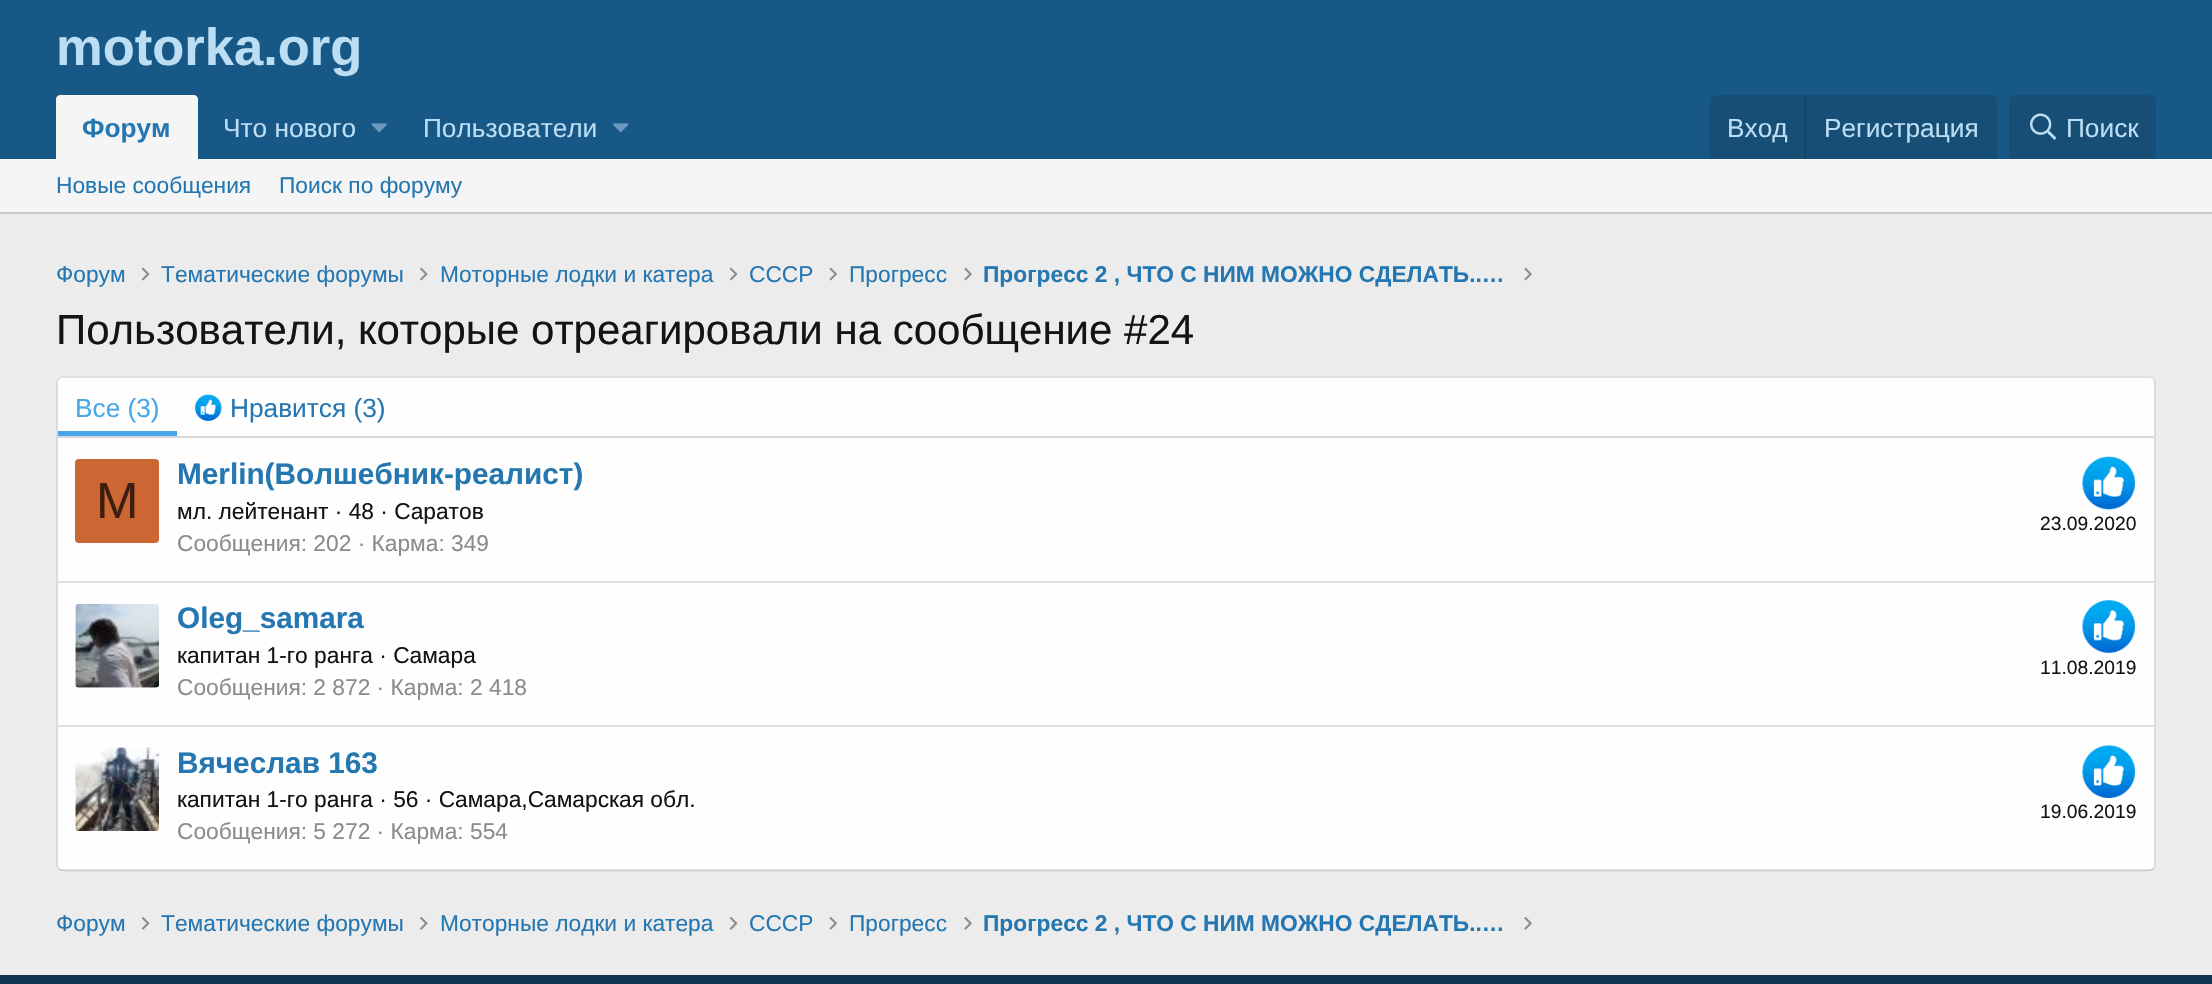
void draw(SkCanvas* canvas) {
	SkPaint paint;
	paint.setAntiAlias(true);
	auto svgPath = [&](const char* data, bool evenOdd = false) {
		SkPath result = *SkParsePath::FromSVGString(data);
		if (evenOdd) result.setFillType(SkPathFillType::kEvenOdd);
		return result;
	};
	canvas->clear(0xffececec);
	paint.setColor(0xff185886);
	canvas->drawRect(SkRect::MakeXYWH(0, 0, 2212, 159), paint);
	SkFont f1(fontMgr->matchFamilyStyle("Liberation Sans", SkFontStyle::Bold()), 52.5);
	f1.setSubpixel(true);
	paint.setColor(0xffbcdef5);
	canvas->drawString("motorka.org", 56, 65, f1, paint);
	paint.setColor(0xfff5f5f5);
	canvas->drawPath(svgPath("M60 95H194C196 95 198 97 198 99V159H56V99C56 97 58 95 60 95Z"), paint);
	SkFont f2(fontMgr->matchFamilyStyle("Liberation Sans", SkFontStyle::Bold()), 26.25);
	f2.setSubpixel(true);
	paint.setColor(0xff2577b1);
	canvas->drawString("Форум", 82, 137, f2, paint);
	SkFont f3(fontMgr->matchFamilyStyle("Liberation Sans", SkFontStyle::Normal()), 26.25);
	f3.setSubpixel(true);
	paint.setColor(0xffbcdef5);
	canvas->drawString("Что нового", 223, 137, f3, paint);
	canvas->drawImageRect(SkImages::DeferredFromEncodedData(SkData::MakeFromFileName("img1.png")), SkRect::MakeXYWH(371, 123, 16, 9), SkSamplingOptions());
	canvas->drawString("Пользователи", 423, 137, f3, paint);
	canvas->drawImageRect(SkImages::DeferredFromEncodedData(SkData::MakeFromFileName("img2.png")), SkRect::MakeXYWH(613, 123, 16, 9), SkSamplingOptions());
	paint.setColor(0xff174e75);
	canvas->drawPath(svgPath("M1717 95H1990C1994 95 1997 98 1997 102V159H1710V102C1710 98 1713 95 1717 95Z"), paint);
	paint.setColor(0xffbcdef5);
	canvas->drawString("Вход", 1727, 137, f3, paint);
	paint.setColor(0xff174566);
	canvas->drawRect(SkRect::MakeXYWH(1804, 95, 2, 64), paint);
	paint.setColor(0xffbcdef5);
	canvas->drawString("Регистрация", 1824, 137, f3, paint);
	paint.setColor(0xff174e75);
	canvas->drawPath(svgPath("M2016 95H2149C2153 95 2156 98 2156 102V159H2009V102C2009 98 2012 95 2016 95Z"), paint);
	canvas->drawImageRect(SkImages::DeferredFromEncodedData(SkData::MakeFromFileName("img3.png")), SkRect::MakeXYWH(2030, 113, 27, 27), SkSamplingOptions());
	paint.setColor(0xffbcdef5);
	canvas->drawString("Поиск", 2066, 137, f3, paint);
	paint.setColor(0xfff5f5f5);
	canvas->drawRect(SkRect::MakeXYWH(0, 159, 2212, 53), paint);
	paint.setColor(0xffcbcbcb);
	canvas->drawRect(SkRect::MakeXYWH(0, 212, 2212, 2), paint);
	SkFont f4(fontMgr->matchFamilyStyle("Liberation Sans", SkFontStyle::Normal()), 22.75);
	f4.setSubpixel(true);
	paint.setColor(0xff2577b1);
	canvas->drawString("Новые сообщения", 56, 193, f4, paint);
	canvas->drawString("Поиск по форуму", 279, 193, f4, paint);
	canvas->drawString("Форум", 56, 282, f4, paint);
	canvas->drawImageRect(SkImages::DeferredFromEncodedData(SkData::MakeFromFileName("img4.png")), SkRect::MakeXYWH(141, 267, 9, 14), SkSamplingOptions());
	canvas->drawString("Тематические форумы", 161, 282, f4, paint);
	canvas->drawImageRect(SkImages::DeferredFromEncodedData(SkData::MakeFromFileName("img5.png")), SkRect::MakeXYWH(420, 267, 8, 14), SkSamplingOptions());
	canvas->drawString("Моторные лодки и катера", 440, 282, f4, paint);
	canvas->drawImageRect(SkImages::DeferredFromEncodedData(SkData::MakeFromFileName("img4.png")), SkRect::MakeXYWH(729, 267, 9, 14), SkSamplingOptions());
	canvas->drawString("СССР", 749, 282, f4, paint);
	canvas->drawImageRect(SkImages::DeferredFromEncodedData(SkData::MakeFromFileName("img6.png")), SkRect::MakeXYWH(829, 267, 8, 14), SkSamplingOptions());
	canvas->drawString("Прогресс", 849, 282, f4, paint);
	canvas->drawImageRect(SkImages::DeferredFromEncodedData(SkData::MakeFromFileName("img7.png")), SkRect::MakeXYWH(964, 267, 8, 14), SkSamplingOptions());
	SkFont f5(fontMgr->matchFamilyStyle("Liberation Sans", SkFontStyle::Bold()), 22.75);
	f5.setSubpixel(true);
	canvas->drawString("Прогресс 2 , ЧТО С НИМ МОЖНО СДЕЛАТЬ..…", 983, 282, f5, paint);
	canvas->drawImageRect(SkImages::DeferredFromEncodedData(SkData::MakeFromFileName("img7.png")), SkRect::MakeXYWH(1524, 267, 8, 14), SkSamplingOptions());
	SkFont f6(fontMgr->matchFamilyStyle("Liberation Sans", SkFontStyle::Normal()), 42);
	f6.setSubpixel(true);
	paint.setColor(0xff141414);
	canvas->drawString("Пользователи, которые отреагировали на сообщение #24", 56, 344, f6, paint);
	paint.setColor(0xfffefefe);
	canvas->drawRoundRect(SkRect::MakeXYWH(56, 376, 2100, 496), 7, 7, paint);
	paint.setStroke(true);
	paint.setStrokeWidth(1.8);
	paint.setColor(0xffdfdfdf);
	canvas->drawPath(svgPath("M58.5 379C60 378 61.5 377 63 377H2149C2150.5 377 2152 378 2153.5 379"), paint);
	paint.setColor(0xffd8d8d8);
	canvas->drawPath(svgPath("M2153.5 379C2154.5 380 2155 381.5 2155 383V864.5C2155 866 2154.5 867.5 2153.5 869"), paint);
	paint.setColor(0xffcbcbcb);
	canvas->drawPath(svgPath("M2153.5 869C2152 870 2150.5 870.5 2149 870.5H63C61.5 870.5 60 870 58.5 869"), paint);
	paint.setColor(0xffd8d8d8);
	canvas->drawPath(svgPath("M58.5 869C57.5 867.5 57 866 57 864.5V383C57 381.5 57.5 380 58.5 379"), paint);
	paint.setStroke(false);
	paint.setColor(0xfffefefe);
	canvas->drawPath(svgPath("M63 378H2149C2152 378 2154 380 2154 383V438H58V383C58 380 60 378 63 378Z"), paint);
	paint.setColor(0xffd8d8d8);
	canvas->drawRect(SkRect::MakeXYWH(58, 436, 2096, 2), paint);
	paint.setColor(0xff47a7eb);
	canvas->drawRect(SkRect::MakeXYWH(58, 431, 119, 5), paint);
	canvas->drawString("Все (3)", 75, 417, f3, paint);
	canvas->drawImageRect(SkImages::DeferredFromEncodedData(SkData::MakeFromFileName("img8.png")), SkRect::MakeXYWH(195, 394, 27, 27), SkSamplingOptions());
	paint.setColor(0xff2577b1);
	canvas->drawString("Нравится (3)", 230, 417, f3, paint);
	paint.setColor(0xffcc6633);
	canvas->drawRoundRect(SkRect::MakeXYWH(75, 459, 84, 84), 4, 4, paint);
	SkFont f7(fontMgr->matchFamilyStyle("Liberation Sans", SkFontStyle::Normal()), 51);
	f7.setSubpixel(true);
	paint.setColor(0xff3d1f0f);
	canvas->drawString("M", 96, 518, f7, paint);
	SkFont f8(fontMgr->matchFamilyStyle("Liberation Sans", SkFontStyle::Bold()), 29.75);
	f8.setSubpixel(true);
	paint.setColor(0xff2577b1);
	canvas->drawString("Merlin(Волшебник-реалист)", 177, 484, f8, paint);
	paint.setColor(0xff141414);
	canvas->drawString("мл. лейтенант · 48 · Саратов", 177, 519, f4, paint);
	canvas->drawImageRect(SkImages::DeferredFromEncodedData(SkData::MakeFromFileName("img9.png")), SkRect::MakeXYWH(2082, 456, 54, 54), SkSamplingOptions());
	SkFont f9(fontMgr->matchFamilyStyle("Liberation Sans", SkFontStyle::Normal()), 19.25);
	f9.setSubpixel(true);
	canvas->drawString("23.09.2020", 2040, 530, f9, paint);
	paint.setColor(0xff8c8c8c);
	canvas->drawString("Сообщения: 202 · Карма: 349", 177, 551, f4, paint);
	paint.setColor(0xffdfdfdf);
	canvas->drawRect(SkRect::MakeXYWH(58, 581, 2096, 2), paint);
	canvas->drawImageRect(SkImages::DeferredFromEncodedData(SkData::MakeFromFileName("img10.png")), SkRect::MakeXYWH(75, 604, 84, 84), SkSamplingOptions());
	paint.setColor(0xff2577b1);
	canvas->drawString("Oleg_samara", 177, 628, f8, paint);
	paint.setColor(0xff141414);
	canvas->drawString("капитан 1-го ранга · Самара", 177, 663, f4, paint);
	canvas->drawImageRect(SkImages::DeferredFromEncodedData(SkData::MakeFromFileName("img11.png")), SkRect::MakeXYWH(2082, 599, 54, 55), SkSamplingOptions());
	canvas->drawString("11.08.2019", 2040, 674, f9, paint);
	paint.setColor(0xff8c8c8c);
	canvas->drawString("Сообщения: 2 872 · Карма: 2 418", 177, 695, f4, paint);
	paint.setColor(0xffdfdfdf);
	canvas->drawRect(SkRect::MakeXYWH(58, 725, 2096, 2), paint);
	canvas->drawImageRect(SkImages::DeferredFromEncodedData(SkData::MakeFromFileName("img12.png")), SkRect::MakeXYWH(75, 747, 84, 84), SkSamplingOptions());
	paint.setColor(0xff2577b1);
	canvas->drawString("Вячеслав 163", 177, 773, f8, paint);
	paint.setColor(0xff141414);
	canvas->drawString("капитан 1-го ранга · 56 · Самара,Самарская обл.", 177, 807, f4, paint);
	canvas->drawImageRect(SkImages::DeferredFromEncodedData(SkData::MakeFromFileName("img13.png")), SkRect::MakeXYWH(2082, 745, 54, 54), SkSamplingOptions());
	canvas->drawString("19.06.2019", 2040, 818, f9, paint);
	paint.setColor(0xff8c8c8c);
	canvas->drawString("Сообщения: 5 272 · Карма: 554", 177, 839, f4, paint);
	paint.setColor(0xff2577b1);
	canvas->drawString("Форум", 56, 931, f4, paint);
	canvas->drawImageRect(SkImages::DeferredFromEncodedData(SkData::MakeFromFileName("img14.png")), SkRect::MakeXYWH(141, 917, 9, 13), SkSamplingOptions());
	canvas->drawString("Тематические форумы", 161, 931, f4, paint);
	canvas->drawImageRect(SkImages::DeferredFromEncodedData(SkData::MakeFromFileName("img15.png")), SkRect::MakeXYWH(420, 917, 8, 13), SkSamplingOptions());
	canvas->drawString("Моторные лодки и катера", 440, 931, f4, paint);
	canvas->drawImageRect(SkImages::DeferredFromEncodedData(SkData::MakeFromFileName("img14.png")), SkRect::MakeXYWH(729, 917, 9, 13), SkSamplingOptions());
	canvas->drawString("СССР", 749, 931, f4, paint);
	canvas->drawImageRect(SkImages::DeferredFromEncodedData(SkData::MakeFromFileName("img16.png")), SkRect::MakeXYWH(829, 917, 9, 13), SkSamplingOptions());
	canvas->drawString("Прогресс", 849, 931, f4, paint);
	canvas->drawImageRect(SkImages::DeferredFromEncodedData(SkData::MakeFromFileName("img17.png")), SkRect::MakeXYWH(964, 917, 8, 13), SkSamplingOptions());
	canvas->drawString("Прогресс 2 , ЧТО С НИМ МОЖНО СДЕЛАТЬ..…", 983, 931, f5, paint);
	canvas->drawImageRect(SkImages::DeferredFromEncodedData(SkData::MakeFromFileName("img17.png")), SkRect::MakeXYWH(1524, 917, 8, 13), SkSamplingOptions());
	paint.setColor(0xff0f3652);
	canvas->drawRect(SkRect::MakeXYWH(0, 975, 2212, 9), paint);
}
